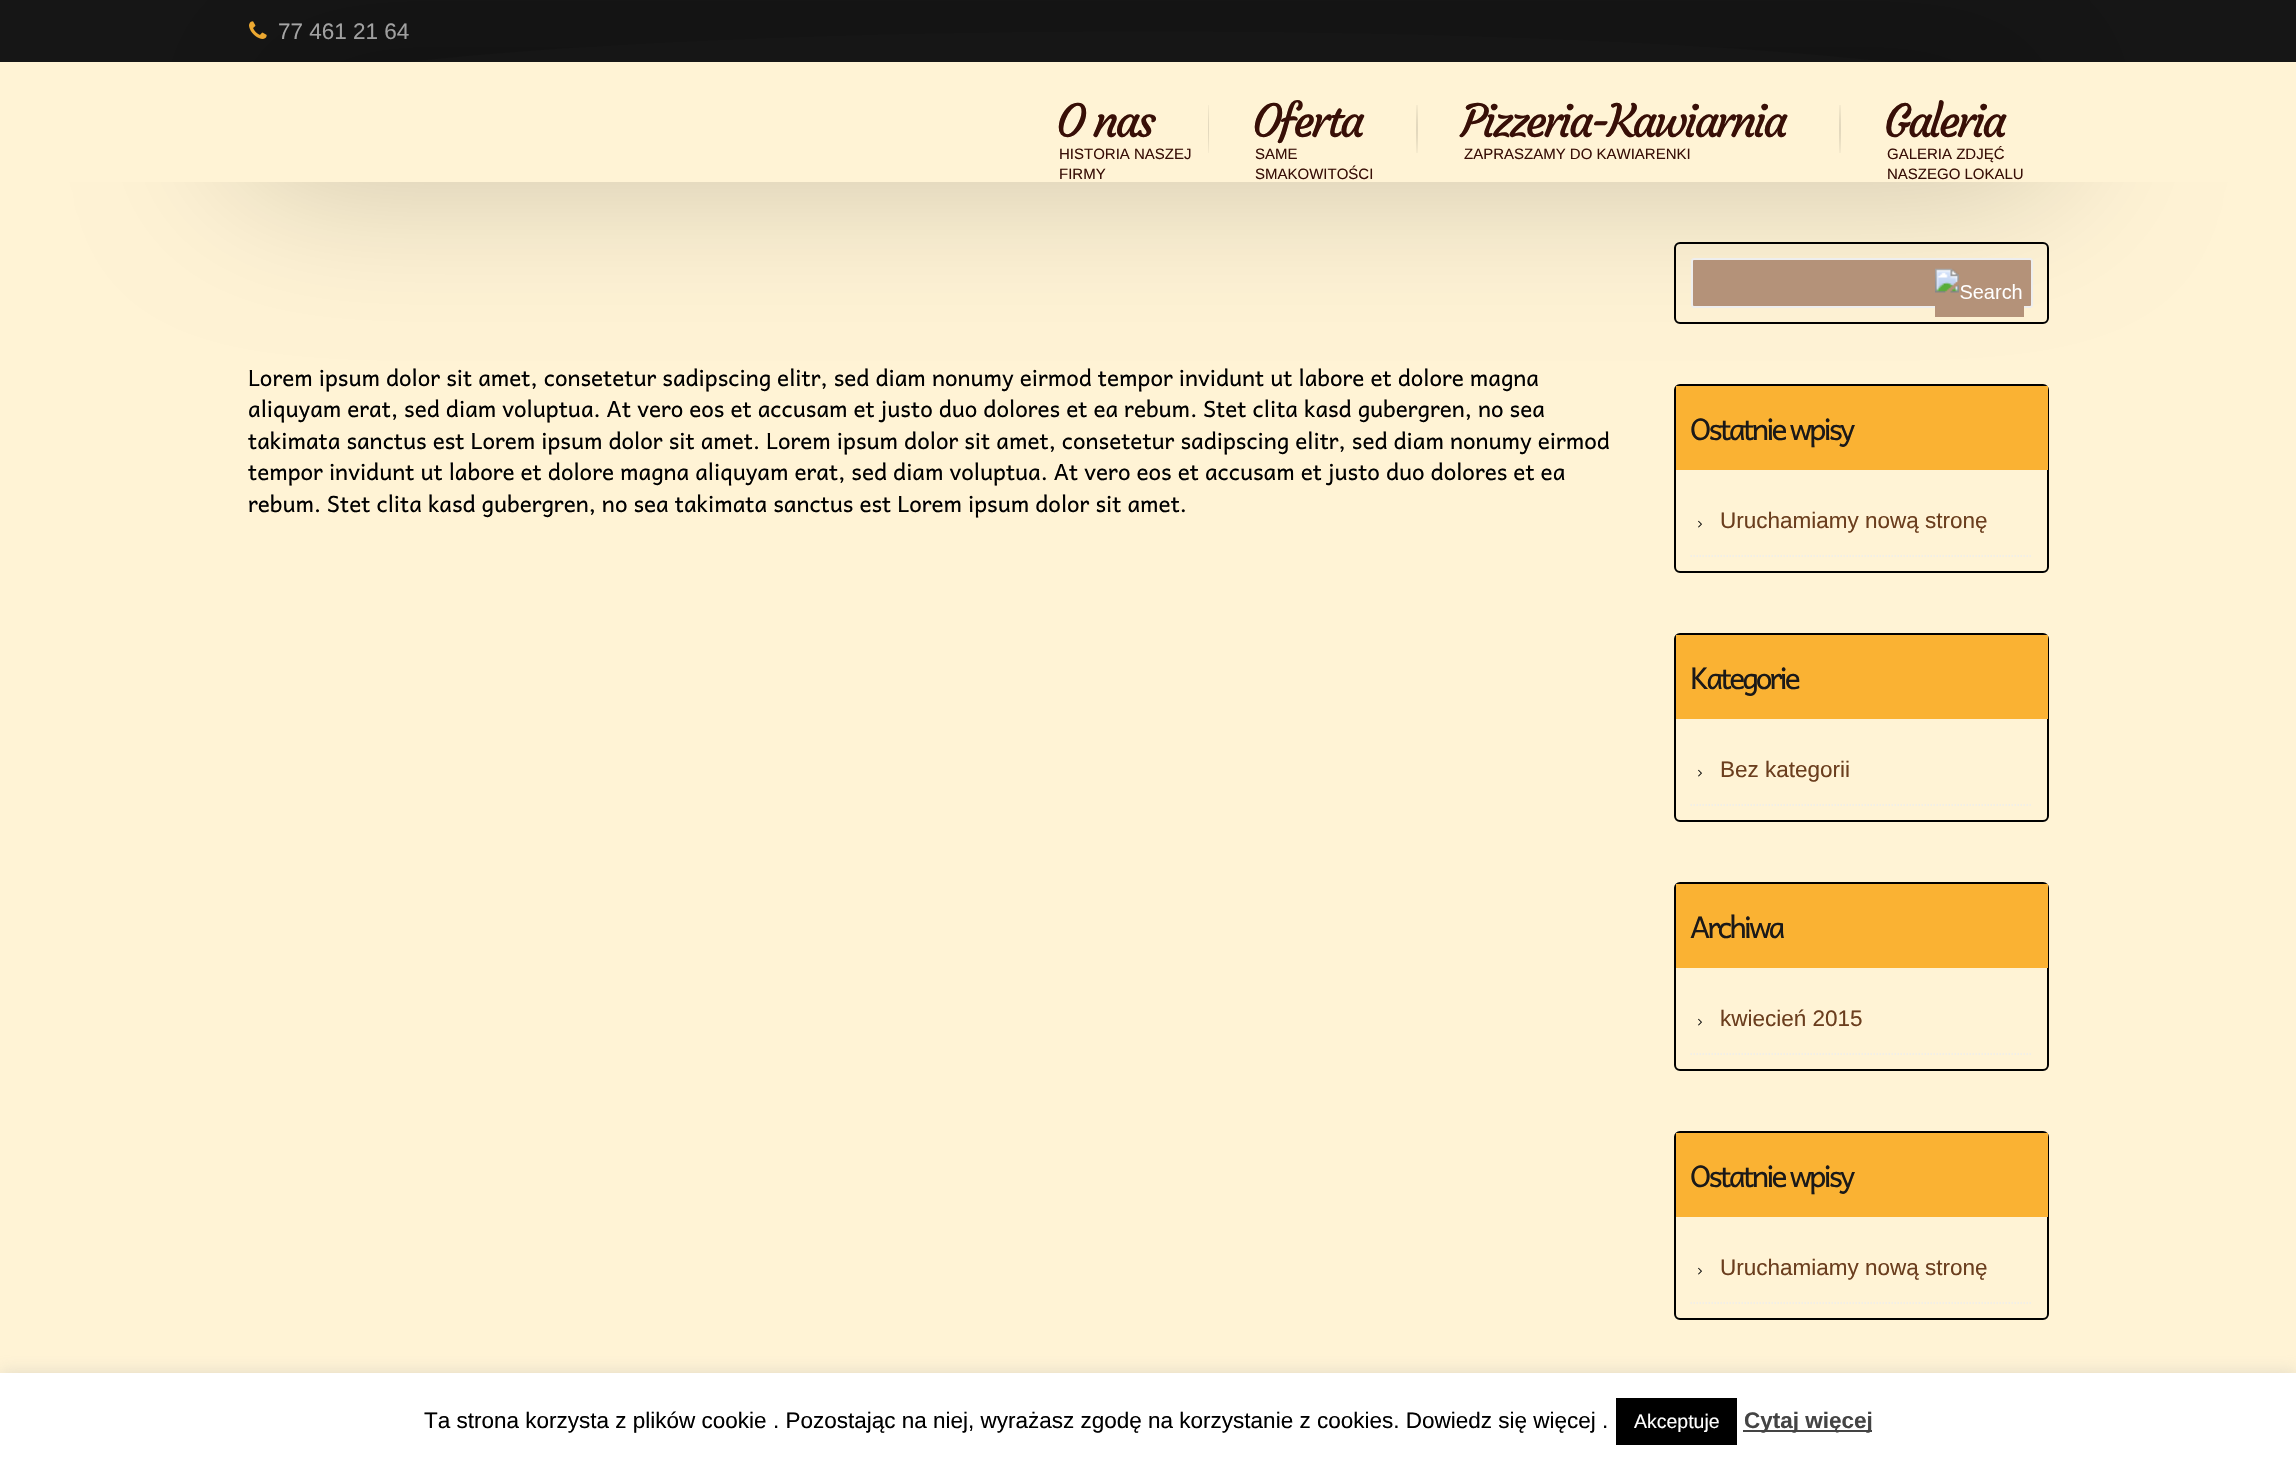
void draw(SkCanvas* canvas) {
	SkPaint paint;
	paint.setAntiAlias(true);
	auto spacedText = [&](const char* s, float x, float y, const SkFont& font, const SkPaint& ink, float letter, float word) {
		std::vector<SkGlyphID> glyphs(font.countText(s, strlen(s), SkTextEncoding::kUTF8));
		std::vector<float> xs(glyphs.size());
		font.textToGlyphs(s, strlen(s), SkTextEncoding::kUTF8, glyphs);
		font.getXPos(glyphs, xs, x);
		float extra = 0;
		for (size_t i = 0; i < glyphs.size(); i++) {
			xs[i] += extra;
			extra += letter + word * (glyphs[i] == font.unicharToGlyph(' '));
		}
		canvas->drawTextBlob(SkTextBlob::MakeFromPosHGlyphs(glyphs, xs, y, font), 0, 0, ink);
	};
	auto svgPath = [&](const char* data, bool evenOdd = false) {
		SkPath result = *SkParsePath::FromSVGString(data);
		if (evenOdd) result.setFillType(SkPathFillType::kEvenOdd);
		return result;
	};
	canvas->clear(0xff161616);
	canvas->drawImageRect(SkImages::DeferredFromEncodedData(SkData::MakeFromFileName("img1.png")), SkRect::MakeXYWH(249, 21, 18, 18), SkSamplingOptions());
	SkFont f1(fontMgr->matchFamilyStyle("Liberation Sans", SkFontStyle::Normal()), 22.5);
	f1.setSubpixel(true);
	paint.setColor(0xffb1b1b1);
	canvas->drawString("77 461 21 64", 278, 39, f1, paint);
	paint.setColor(0xfffff3d5);
	canvas->drawRect(SkRect::MakeXYWH(0, 182, 2296, 1191), paint);
	canvas->save();
	canvas->clipPath(svgPath("M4 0H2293V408H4ZM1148 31.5C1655.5 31.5 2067 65 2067 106.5C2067 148 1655.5 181.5 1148 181.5C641 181.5 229.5 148 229.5 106.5C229.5 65 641 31.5 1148 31.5Z", true), true);
	paint.setColor(0x33000000);
	paint.setMaskFilter(SkMaskFilter::MakeBlur(kNormal_SkBlurStyle, 75));
	canvas->drawRoundRect(SkRect::MakeXYWH(230, 32, 1837, 150), 75, 75, paint);
	paint.setMaskFilter(nullptr);
	canvas->restore();
	paint.setColor(0xfffff3d5);
	canvas->drawRect(SkRect::MakeXYWH(0, 62, 2296, 120), paint);
	SkFont f2(fontMgr->matchFamilyStyle("Courgette", SkFontStyle::Normal()), 45);
	f2.setSubpixel(true);
	paint.setColor(0xff380f07);
	spacedText("O nas", 1056, 137, f2, paint, -3, 0);
	SkFont f3(fontMgr->matchFamilyStyle("Liberation Sans", SkFontStyle::Normal()), 15);
	f3.setSubpixel(true);
	canvas->drawString("HISTORIA NASZEJ", 1059, 159, f3, paint);
	canvas->drawString("FIRMY", 1059, 179, f3, paint);
	{
		const SkColor colors[] = {0xffccc2aa, 0xfffff3d5};
		const float stops[] = {0, 1};
		SkMatrix m = SkMatrix::Translate(1208, 129).preScale(1.1, 34);
		paint.setShader(SkGradientShader::MakeRadial({0, 0}, 1, colors, stops, 2, SkTileMode::kClamp, 0, &m));
		paint.setAlpha(255);
	}
	canvas->drawRect(SkRect::MakeXYWH(1208, 105, 1, 48), paint);
	paint.setShader(nullptr);
	paint.setColor(0xff380f07);
	spacedText("Oferta", 1252, 137, f2, paint, -3, 0);
	canvas->drawString("SAME", 1255, 159, f3, paint);
	canvas->drawString("SMAKOWITOŚCI", 1255, 179, f3, paint);
	{
		const SkColor colors[] = {0xffccc2aa, 0xfffff3d5};
		const float stops[] = {0, 1};
		SkMatrix m = SkMatrix::Translate(1417, 129).preScale(1.1, 34);
		paint.setShader(SkGradientShader::MakeRadial({0, 0}, 1, colors, stops, 2, SkTileMode::kClamp, 0, &m));
		paint.setAlpha(255);
	}
	canvas->drawRect(SkRect::MakeXYWH(1416, 105, 2, 48), paint);
	paint.setShader(nullptr);
	paint.setColor(0xff380f07);
	spacedText("Pizzeria-Kawiarnia", 1461, 137, f2, paint, -3, 0);
	canvas->drawString("ZAPRASZAMY DO KAWIARENKI", 1464, 159, f3, paint);
	{
		const SkColor colors[] = {0xffccc2aa, 0xfffff3d5};
		const float stops[] = {0, 1};
		SkMatrix m = SkMatrix::Translate(1840, 129).preScale(1.1, 34);
		paint.setShader(SkGradientShader::MakeRadial({0, 0}, 1, colors, stops, 2, SkTileMode::kClamp, 0, &m));
		paint.setAlpha(255);
	}
	canvas->drawRect(SkRect::MakeXYWH(1839, 105, 2, 48), paint);
	paint.setShader(nullptr);
	paint.setColor(0xff380f07);
	spacedText("Galeria", 1884, 137, f2, paint, -3, 0);
	canvas->drawString("GALERIA ZDJĘĆ", 1887, 159, f3, paint);
	canvas->drawString("NASZEGO LOKALU", 1887, 179, f3, paint);
	SkFont f4(fontMgr->matchFamilyStyle("Andika", SkFontStyle::Normal()), 22.5);
	f4.setSubpixel(true);
	paint.setColor(0xff000000);
	canvas->drawString("Lorem ipsum dolor sit amet, consetetur sadipscing elitr, sed diam nonumy eirmod tempor invidunt ut labore et dolore magna", 248, 386, f4, paint);
	canvas->drawString("aliquyam erat, sed diam voluptua. At vero eos et accusam et justo duo dolores et ea rebum. Stet clita kasd gubergren, no sea", 248, 417, f4, paint);
	canvas->drawString("takimata sanctus est Lorem ipsum dolor sit amet. Lorem ipsum dolor sit amet, consetetur sadipscing elitr, sed diam nonumy eirmod", 248, 449, f4, paint);
	canvas->drawString("tempor invidunt ut labore et dolore magna aliquyam erat, sed diam voluptua. At vero eos et accusam et justo duo dolores et ea", 248, 480, f4, paint);
	canvas->drawString("rebum. Stet clita kasd gubergren, no sea takimata sanctus est Lorem ipsum dolor sit amet.", 248, 512, f4, paint);
	paint.setStroke(true);
	paint.setStrokeWidth(2);
	canvas->drawRoundRect(SkRect::MakeXYWH(1675, 243, 373, 80), 5, 5, paint);
	paint.setStroke(false);
	paint.setColor(0xffb49279);
	canvas->drawRoundRect(SkRect::MakeXYWH(1692, 259, 340, 48), 2, 2, paint);
	paint.setStroke(true);
	paint.setColor(0xffeeeeee);
	canvas->drawRoundRect(SkRect::MakeXYWH(1692, 259, 340, 48), 2, 2, paint);
	paint.setStroke(false);
	paint.setColor(0xffb49279);
	canvas->drawRect(SkRect::MakeXYWH(1935, 306, 89, 11), paint);
	canvas->drawImageRect(SkImages::DeferredFromEncodedData(SkData::MakeFromFileName("img2.png")), SkRect::MakeXYWH(1935, 268, 87, 31), SkSamplingOptions());
	paint.setStroke(true);
	paint.setColor(0xff000000);
	canvas->drawRoundRect(SkRect::MakeXYWH(1675, 385, 373, 187), 5, 5, paint);
	paint.setStroke(false);
	paint.setColor(0xfffab233);
	canvas->drawRect(SkRect::MakeXYWH(1676, 386, 372, 84), paint);
	SkFont f5(fontMgr->matchFamilyStyle("Andika", SkFontStyle::Normal()), 30);
	f5.setSubpixel(true);
	paint.setColor(0xff1b1918);
	spacedText("Ostatnie wpisy", 1690, 440, f5, paint, -3, 0);
	paint.setStroke(true);
	paint.setStrokeWidth(1.5);
	paint.setColor(0xffeeeeee);
	paint.setPathEffect(SkDashPathEffect::Make({{1.5f, 1.5f}}, 0));
	canvas->drawPath(svgPath("M1690.5 556H2032.5"), paint);
	paint.setPathEffect(nullptr);
	canvas->drawImageRect(SkImages::DeferredFromEncodedData(SkData::MakeFromFileName("img3.png")), SkRect::MakeXYWH(1698, 520, 4, 8), SkSamplingOptions());
	paint.setStroke(false);
	paint.setColor(0xff6b3e1e);
	canvas->drawString("Uruchamiamy nową stronę", 1720, 528, f1, paint);
	paint.setStroke(true);
	paint.setStrokeWidth(2);
	paint.setColor(0xff000000);
	canvas->drawRoundRect(SkRect::MakeXYWH(1675, 634, 373, 187), 5, 5, paint);
	paint.setStroke(false);
	paint.setColor(0xfffab233);
	canvas->drawRect(SkRect::MakeXYWH(1676, 635, 372, 84), paint);
	paint.setColor(0xff1b1918);
	spacedText("Kategorie", 1690, 689, f5, paint, -3, 0);
	paint.setStroke(true);
	paint.setStrokeWidth(1.5);
	paint.setColor(0xffeeeeee);
	paint.setPathEffect(SkDashPathEffect::Make({{1.5f, 1.5f}}, 0));
	canvas->drawPath(svgPath("M1690.5 805H2032.5"), paint);
	paint.setPathEffect(nullptr);
	canvas->drawImageRect(SkImages::DeferredFromEncodedData(SkData::MakeFromFileName("img3.png")), SkRect::MakeXYWH(1698, 769, 4, 8), SkSamplingOptions());
	paint.setStroke(false);
	paint.setColor(0xff6b3e1e);
	canvas->drawString("Bez kategorii", 1720, 777, f1, paint);
	paint.setStroke(true);
	paint.setStrokeWidth(2);
	paint.setColor(0xff000000);
	canvas->drawRoundRect(SkRect::MakeXYWH(1675, 883, 373, 187), 5, 5, paint);
	paint.setStroke(false);
	paint.setColor(0xfffab233);
	canvas->drawRect(SkRect::MakeXYWH(1676, 884, 372, 84), paint);
	paint.setColor(0xff1b1918);
	spacedText("Archiwa", 1690, 938, f5, paint, -3, 0);
	paint.setStroke(true);
	paint.setStrokeWidth(1.5);
	paint.setColor(0xffeeeeee);
	paint.setPathEffect(SkDashPathEffect::Make({{1.5f, 1.5f}}, 0));
	canvas->drawPath(svgPath("M1690.5 1054H2032.5"), paint);
	paint.setPathEffect(nullptr);
	canvas->drawImageRect(SkImages::DeferredFromEncodedData(SkData::MakeFromFileName("img3.png")), SkRect::MakeXYWH(1698, 1018, 4, 8), SkSamplingOptions());
	paint.setStroke(false);
	paint.setColor(0xff6b3e1e);
	canvas->drawString("kwiecień 2015", 1720, 1026, f1, paint);
	paint.setStroke(true);
	paint.setStrokeWidth(2);
	paint.setColor(0xff000000);
	canvas->drawRoundRect(SkRect::MakeXYWH(1675, 1132, 373, 187), 5, 5, paint);
	paint.setStroke(false);
	paint.setColor(0xfffab233);
	canvas->drawRect(SkRect::MakeXYWH(1676, 1133, 372, 84), paint);
	paint.setColor(0xff1b1918);
	spacedText("Ostatnie wpisy", 1690, 1187, f5, paint, -3, 0);
	paint.setStroke(true);
	paint.setStrokeWidth(1.5);
	paint.setColor(0xffeeeeee);
	paint.setPathEffect(SkDashPathEffect::Make({{1.5f, 1.5f}}, 0));
	canvas->drawPath(svgPath("M1690.5 1303H2032.5"), paint);
	paint.setPathEffect(nullptr);
	canvas->drawImageRect(SkImages::DeferredFromEncodedData(SkData::MakeFromFileName("img3.png")), SkRect::MakeXYWH(1698, 1267, 4, 8), SkSamplingOptions());
	paint.setStroke(false);
	paint.setColor(0xff6b3e1e);
	canvas->drawString("Uruchamiamy nową stronę", 1720, 1275, f1, paint);
	paint.setColor(0x4dacabab);
	paint.setMaskFilter(SkMaskFilter::MakeBlur(kNormal_SkBlurStyle, 7.5));
	canvas->drawRect(SkRect::MakeXYWH(0, 1371, 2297, 90), paint);
	paint.setMaskFilter(nullptr);
	paint.setColor(0xffffffff);
	canvas->drawRect(SkRect::MakeXYWH(0, 1373, 2296, 89), paint);
	paint.setColor(0xff000000);
	canvas->drawString("Ta strona korzysta z plików cookie . Pozostając na niej, wyrażasz zgodę na korzystanie z cookies. Dowiedz się więcej .", 424, 1428, f1, paint);
	canvas->drawRect(SkRect::MakeXYWH(1616, 1398, 121, 47), paint);
	SkFont f6(fontMgr->matchFamilyStyle("Liberation Sans", SkFontStyle::Normal()), 19.5);
	f6.setSubpixel(true);
	paint.setColor(0xffffffff);
	canvas->drawString("Akceptuje", 1634, 1428, f6, paint);
	paint.setColor(0xff444444);
	canvas->drawRect(SkRect::MakeXYWH(1743, 1430, 129, 2), paint);
	SkFont f7(fontMgr->matchFamilyStyle("Liberation Sans", SkFontStyle::Bold()), 22.5);
	f7.setSubpixel(true);
	canvas->drawString("Cytaj więcej", 1744, 1428, f7, paint);
}
